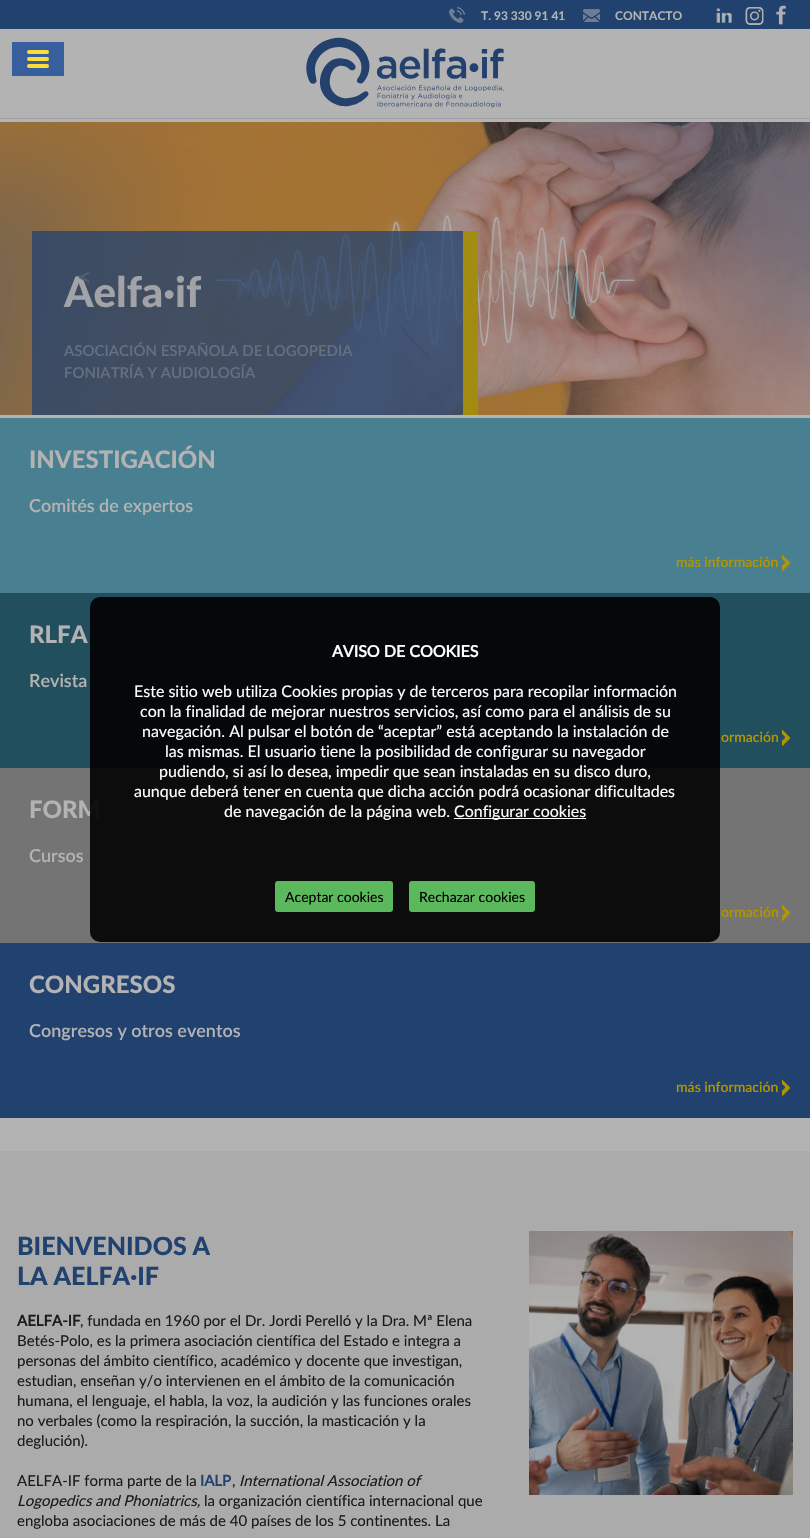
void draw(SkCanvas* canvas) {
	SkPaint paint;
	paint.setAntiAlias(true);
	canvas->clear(0xffb3b3b3);
	paint.setColor(0xffa0a0a0);
	canvas->drawRect(SkRect::MakeXYWH(0, 118, 810, 1), paint);
	paint.setColor(0xff21416f);
	canvas->drawRect(SkRect::MakeXYWH(0, 0, 810, 29), paint);
	canvas->drawImageRect(SkImages::DeferredFromEncodedData(SkData::MakeFromFileName("img1.png")), SkRect::MakeXYWH(449, 7, 16, 16), SkSamplingOptions());
	SkFont f1(fontMgr->matchFamilyStyle("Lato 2", SkFontStyle::Bold()), 12);
	f1.setSubpixel(true);
	paint.setColor(0xffb3b3b3);
	canvas->drawString("T. 93 330 91 41", 481, 20, f1, paint);
	canvas->drawImageRect(SkImages::DeferredFromEncodedData(SkData::MakeFromFileName("img2.png")), SkRect::MakeXYWH(583, 9, 17, 13), SkSamplingOptions());
	canvas->drawString("CONTACTO", 615, 20, f1, paint);
	canvas->drawImageRect(SkImages::DeferredFromEncodedData(SkData::MakeFromFileName("img3.png")), SkRect::MakeXYWH(716, 8, 16, 15), SkSamplingOptions());
	canvas->drawImageRect(SkImages::DeferredFromEncodedData(SkData::MakeFromFileName("img4.png")), SkRect::MakeXYWH(745, 7, 19, 18), SkSamplingOptions());
	canvas->drawImageRect(SkImages::DeferredFromEncodedData(SkData::MakeFromFileName("img5.png")), SkRect::MakeXYWH(776, 5, 10, 20), SkSamplingOptions());
	canvas->drawImageRect(SkImages::DeferredFromEncodedData(SkData::MakeFromFileName("img6.png")), SkRect::MakeXYWH(306, 37, 198, 71), SkSamplingOptions());
	paint.setColor(0xff375f9e);
	canvas->drawRect(SkRect::MakeXYWH(12, 42, 52, 34), paint);
	paint.setColor(0xfffcdc3b);
	canvas->drawRoundRect(SkRect::MakeXYWH(27, 50, 22, 4), 2, 2, paint);
	canvas->drawRoundRect(SkRect::MakeXYWH(27, 57, 22, 4), 2, 2, paint);
	canvas->drawRoundRect(SkRect::MakeXYWH(27, 64, 22, 4), 2, 2, paint);
	canvas->drawImageRect(SkImages::DeferredFromEncodedData(SkData::MakeFromFileName("img7.png")), SkRect::MakeXYWH(0, 122, 810, 293), SkSamplingOptions());
	paint.setColor(0xbf21416f);
	canvas->drawRect(SkRect::MakeXYWH(32, 231, 446, 184), paint);
	SkFont f2(fontMgr->matchFamilyStyle("Lato", SkFontStyle(900, SkFontStyle::kNormal_Width, SkFontStyle::kUpright_Slant)), 42);
	f2.setSubpixel(true);
	paint.setColor(0xffa1a3a7);
	canvas->drawString("Aelfa·if", 64, 307, f2, paint);
	SkFont f3(fontMgr->matchFamilyStyle("Lato 2", SkFontStyle::Bold()), 26);
	f3.setSubpixel(true);
	paint.setColor(0xff505c70);
	canvas->drawString("<", 77, 286, f3, paint);
	paint.setColor(0xd9b39500);
	canvas->drawRect(SkRect::MakeXYWH(463, 231, 15, 184), paint);
	SkFont f4(fontMgr->matchFamilyStyle("Lato", SkFontStyle(600, SkFontStyle::kNormal_Width, SkFontStyle::kUpright_Slant)), 15);
	f4.setSubpixel(true);
	paint.setColor(0xff646f82);
	canvas->drawString("ASOCIACIÓN ESPAÑOLA DE LOGOPEDIA", 64, 356, f4, paint);
	canvas->drawString("FONIATRÍA Y AUDIOLOGÍA", 64, 378, f4, paint);
	paint.setColor(0xff487f91);
	canvas->drawRect(SkRect::MakeXYWH(0, 418, 810, 175), paint);
	SkFont f5(fontMgr->matchFamilyStyle("Lato", SkFontStyle(900, SkFontStyle::kNormal_Width, SkFontStyle::kUpright_Slant)), 24);
	f5.setSubpixel(true);
	paint.setColor(0xffb3b3b3);
	canvas->drawString("INVESTIGACIÓN", 29, 468, f5, paint);
	SkFont f6(fontMgr->matchFamilyStyle("Lato", SkFontStyle(600, SkFontStyle::kNormal_Width, SkFontStyle::kUpright_Slant)), 18);
	f6.setSubpixel(true);
	canvas->drawString("Comités de expertos", 29, 512, f6, paint);
	SkFont f7(fontMgr->matchFamilyStyle("Lato", SkFontStyle(600, SkFontStyle::kNormal_Width, SkFontStyle::kUpright_Slant)), 14);
	f7.setSubpixel(true);
	paint.setColor(0xffb39500);
	canvas->drawString("más información", 676, 567, f7, paint);
	canvas->drawImageRect(SkImages::DeferredFromEncodedData(SkData::MakeFromFileName("img8.png")), SkRect::MakeXYWH(782, 554, 8, 18), SkSamplingOptions());
	paint.setColor(0xff224f5d);
	canvas->drawRect(SkRect::MakeXYWH(0, 593, 810, 175), paint);
	paint.setColor(0xffb3b3b3);
	canvas->drawString("RLFA", 29, 643, f5, paint);
	canvas->drawString("Revista", 29, 687, f6, paint);
	paint.setColor(0xffb39500);
	canvas->drawString("ormación", 721, 742, f7, paint);
	canvas->drawImageRect(SkImages::DeferredFromEncodedData(SkData::MakeFromFileName("img9.png")), SkRect::MakeXYWH(782, 729, 8, 18), SkSamplingOptions());
	paint.setColor(0xff747474);
	canvas->drawRect(SkRect::MakeXYWH(0, 768, 810, 175), paint);
	paint.setColor(0xffb3b3b3);
	canvas->drawString("FORM", 29, 818, f5, paint);
	canvas->drawString("Cursos", 29, 862, f6, paint);
	paint.setColor(0xffb39500);
	canvas->drawString("ormación", 721, 917, f7, paint);
	canvas->drawImageRect(SkImages::DeferredFromEncodedData(SkData::MakeFromFileName("img10.png")), SkRect::MakeXYWH(782, 904, 8, 18), SkSamplingOptions());
	paint.setColor(0xff21416f);
	canvas->drawRect(SkRect::MakeXYWH(0, 943, 810, 175), paint);
	paint.setColor(0xffb3b3b3);
	canvas->drawString("CONGRESOS", 29, 993, f5, paint);
	canvas->drawString("Congresos y otros eventos", 29, 1037, f6, paint);
	paint.setColor(0xffb39500);
	canvas->drawString("más información", 676, 1092, f7, paint);
	canvas->drawImageRect(SkImages::DeferredFromEncodedData(SkData::MakeFromFileName("img11.png")), SkRect::MakeXYWH(782, 1079, 8, 18), SkSamplingOptions());
	paint.setColor(0xe6000000);
	canvas->drawRoundRect(SkRect::MakeXYWH(90, 597, 630, 345), 10, 10, paint);
	SkFont f8(fontMgr->matchFamilyStyle("Lato", SkFontStyle::Bold()), 16);
	f8.setSubpixel(true);
	paint.setColor(0xffffffff);
	canvas->drawString("AVISO DE COOKIES", 332, 657, f8, paint);
	SkFont f9(fontMgr->matchFamilyStyle("Lato", SkFontStyle::Normal()), 16);
	f9.setSubpixel(true);
	canvas->drawString("Este sitio web utiliza Cookies propias y de terceros para recopilar información", 134, 697, f9, paint);
	canvas->drawString("con la finalidad de mejorar nuestros servicios, así como para el análisis de su", 140, 717, f9, paint);
	canvas->drawString("navegación. Al pulsar el botón de “aceptar” está aceptando la instalación de", 142, 737, f9, paint);
	canvas->drawString("las mismas. El usuario tiene la posibilidad de configurar su navegador", 165, 757, f9, paint);
	canvas->drawString("pudiendo, si así lo desea, impedir que sean instaladas en su disco duro,", 159, 777, f9, paint);
	canvas->drawString("aunque deberá tener en cuenta que dicha acción podrá ocasionar dificultades", 134, 797, f9, paint);
	canvas->drawString("de navegación de la página web.", 224, 817, f9, paint);
	canvas->drawRect(SkRect::MakeXYWH(454, 818, 132, 1), paint);
	canvas->drawString("Configurar cookies", 454, 817, f9, paint);
	paint.setColor(0xff5cb85c);
	canvas->drawRoundRect(SkRect::MakeXYWH(275, 881, 118, 31), 3, 3, paint);
	SkFont f10(fontMgr->matchFamilyStyle("Lato", SkFontStyle::Normal()), 14);
	f10.setSubpixel(true);
	paint.setColor(0xff000000);
	canvas->drawString("Aceptar cookies", 285, 902, f10, paint);
	paint.setColor(0xff5cb85c);
	canvas->drawRoundRect(SkRect::MakeXYWH(409, 881, 126, 31), 3, 3, paint);
	paint.setColor(0xff000000);
	canvas->drawString("Rechazar cookies", 419, 902, f10, paint);
	paint.setColor(0xffababab);
	canvas->drawRect(SkRect::MakeXYWH(0, 1151, 810, 387), paint);
	SkFont f11(fontMgr->matchFamilyStyle("Lato", SkFontStyle(900, SkFontStyle::kNormal_Width, SkFontStyle::kUpright_Slant)), 25);
	f11.setSubpixel(true);
	paint.setColor(0xff21416f);
	canvas->drawString("BIENVENIDOS A", 17, 1255, f11, paint);
	canvas->drawString("LA AELFA·IF", 17, 1285, f11, paint);
	SkFont f12(fontMgr->matchFamilyStyle("Lato", SkFontStyle::Bold()), 15);
	f12.setSubpixel(true);
	paint.setColor(0xff1a1a1a);
	canvas->drawString("AELFA-IF", 17, 1326, f12, paint);
	SkFont f13(fontMgr->matchFamilyStyle("Lato", SkFontStyle::Normal()), 15);
	f13.setSubpixel(true);
	canvas->drawString(", fundada en 1960 por el Dr. Jordi Perelló y la Dra. Mª Elena", 80, 1326, f13, paint);
	canvas->drawString("Betés-Polo, es la primera asociación científica del Estado e integra a", 17, 1346, f13, paint);
	canvas->drawString("personas del ámbito científico, académico y docente que investigan,", 17, 1366, f13, paint);
	canvas->drawString("estudian, enseñan y/o intervienen en el ámbito de la comunicación", 17, 1386, f13, paint);
	canvas->drawString("humana, el lenguaje, el habla, la voz, la audición y las funciones orales", 17, 1406, f13, paint);
	canvas->drawString("no verbales (como la respiración, la succión, la masticación y la", 17, 1426, f13, paint);
	canvas->drawString("deglución).", 17, 1446, f13, paint);
	canvas->drawString("AELFA-IF forma parte de la", 17, 1486, f13, paint);
	paint.setColor(0xff21416f);
	canvas->drawString("IALP", 200, 1486, f12, paint);
	paint.setColor(0xff1a1a1a);
	canvas->drawString(",", 232, 1486, f13, paint);
	SkFont f14(fontMgr->matchFamilyStyle("Lato", SkFontStyle::Italic()), 15);
	f14.setSubpixel(true);
	canvas->drawString("International Association of", 239, 1486, f14, paint);
	canvas->drawString("Logopedics and Phoniatrics,", 17, 1506, f14, paint);
	canvas->drawString("la organización científica internacional que", 204, 1506, f13, paint);
	canvas->drawString("engloba asociaciones de más de 40 países de los 5 continentes. La", 17, 1526, f13, paint);
	canvas->drawImageRect(SkImages::DeferredFromEncodedData(SkData::MakeFromFileName("img12.png")), SkRect::MakeXYWH(529, 1231, 264, 264), SkSamplingOptions());
}
